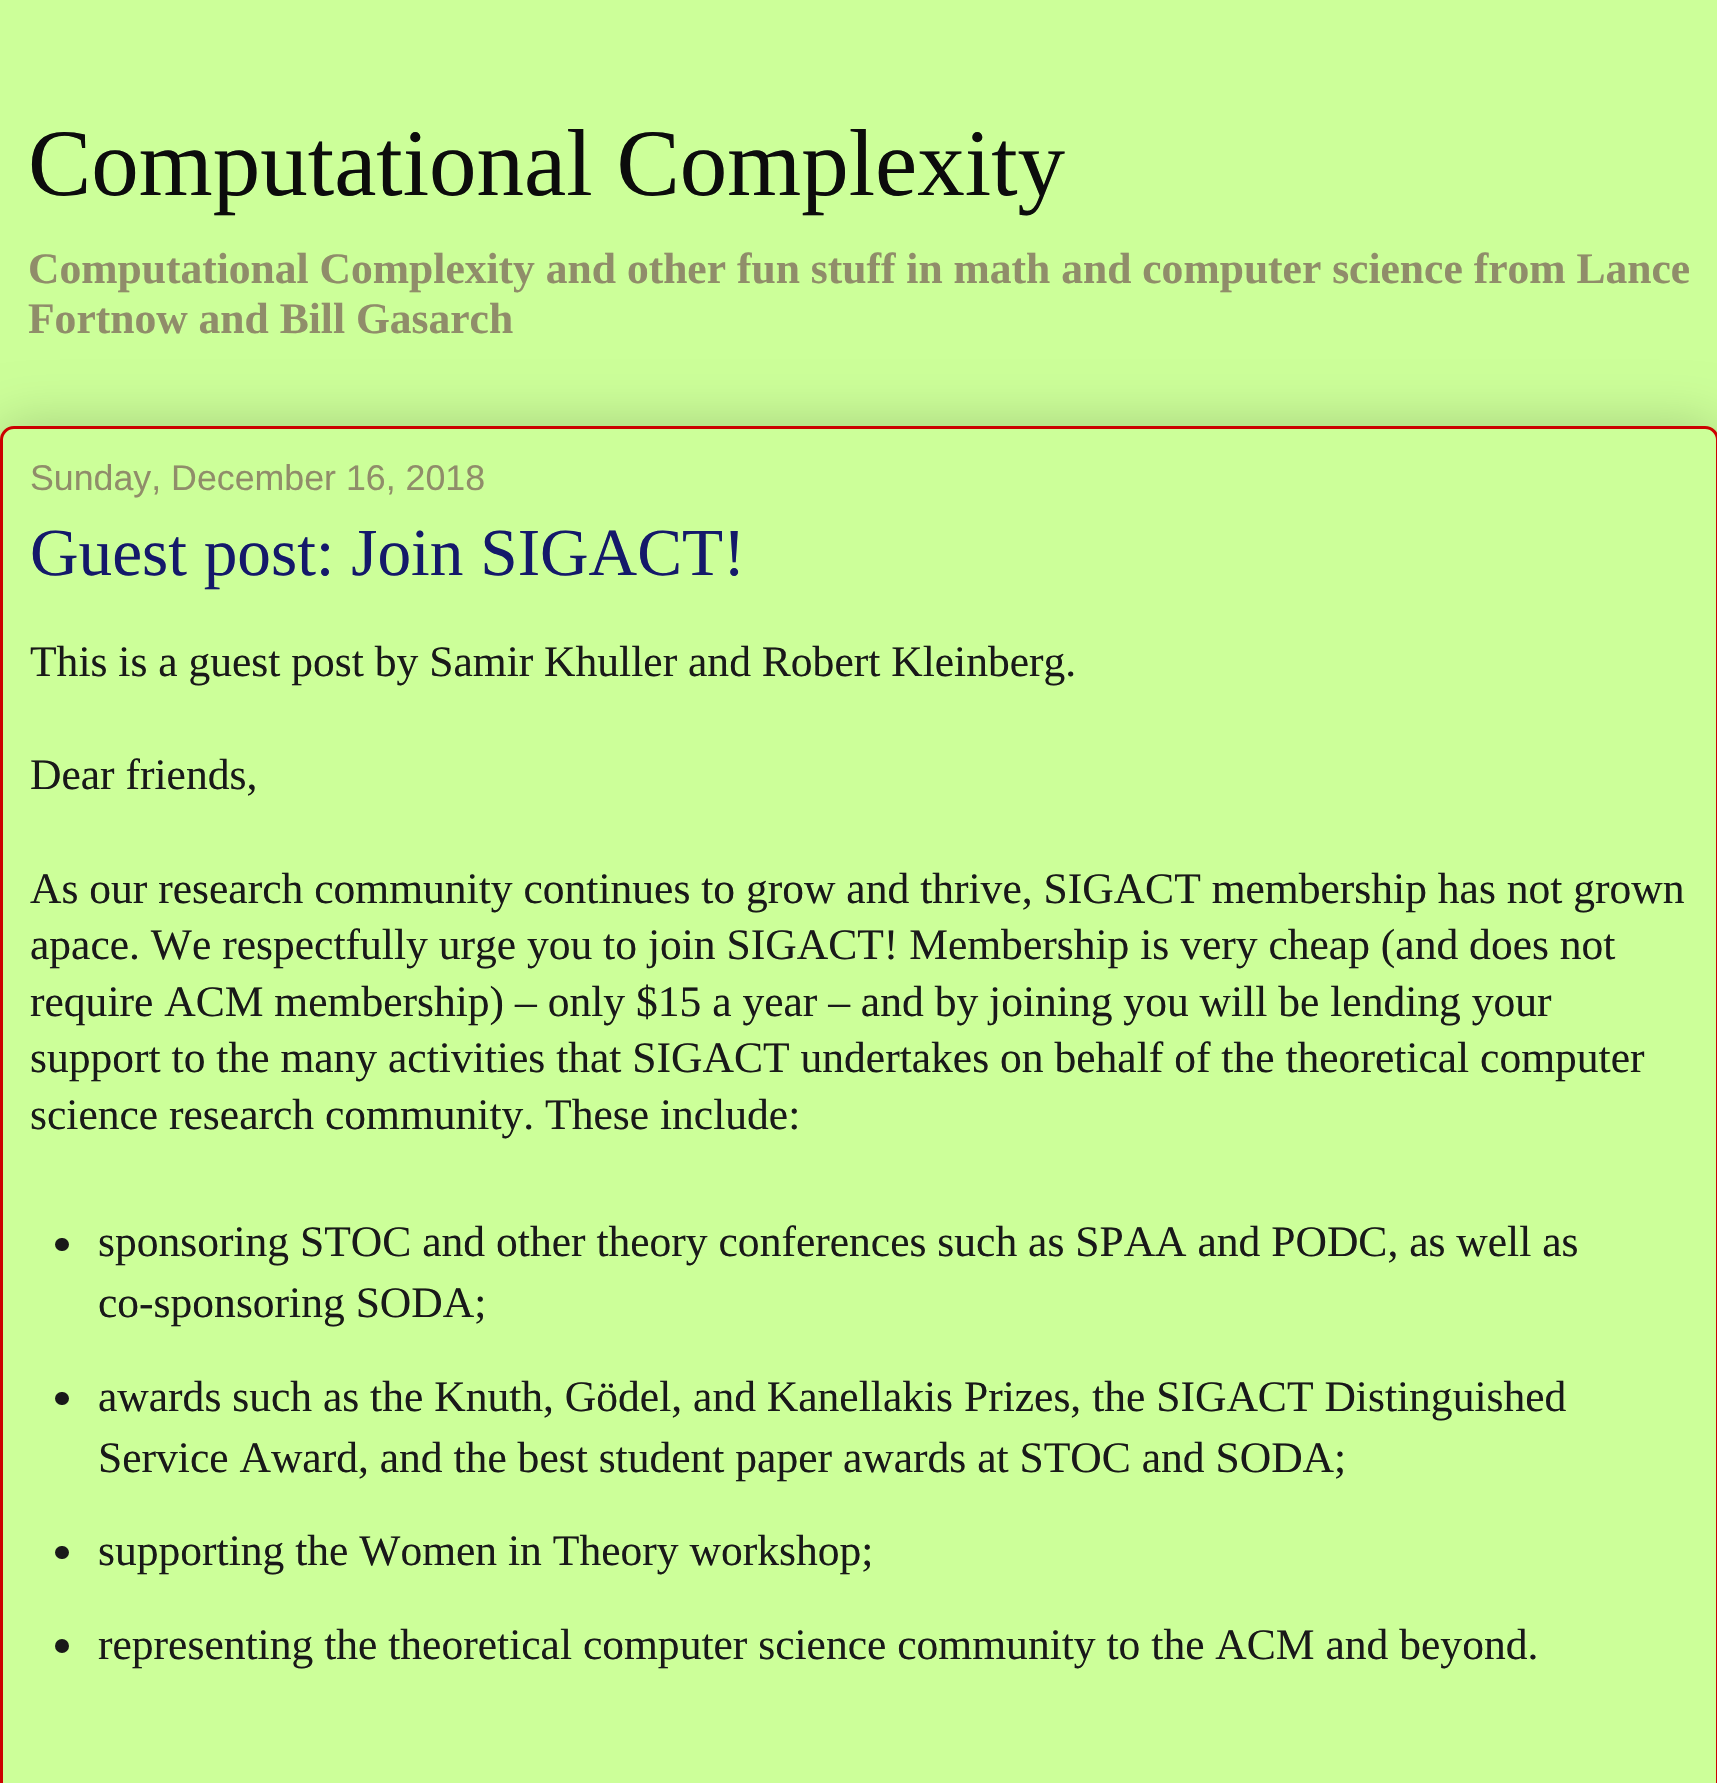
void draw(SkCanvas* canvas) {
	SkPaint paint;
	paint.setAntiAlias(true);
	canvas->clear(0xffccff99);
	SkFont f1(fontMgr->matchFamilyStyle("Liberation Serif", SkFontStyle::Normal()), 95);
	f1.setSubpixel(true);
	paint.setColor(0xff0c0c0c);
	canvas->drawString("Computational Complexity", 28, 195, f1, paint);
	SkFont f2(fontMgr->matchFamilyStyle("Liberation Serif", SkFontStyle::Bold()), 43.55);
	f2.setSubpixel(true);
	paint.setColor(0xff908d6a);
	canvas->drawString("Computational Complexity and other fun stuff in math and computer science from Lance", 28, 283, f2, paint);
	canvas->drawString("Fortnow and Bill Gasarch", 28, 333, f2, paint);
	paint.setColor(0x33000000);
	paint.setMaskFilter(SkMaskFilter::MakeBlur(kNormal_SkBlurStyle, 27.5));
	canvas->drawRoundRect(SkRect::MakeXYWH(0, 426, 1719, 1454), 14, 14, paint);
	paint.setMaskFilter(nullptr);
	paint.setColor(0xffccff99);
	canvas->drawRoundRect(SkRect::MakeXYWH(1.5, 427.5, 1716, 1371), 12.5, 12.5, paint);
	paint.setStroke(true);
	paint.setStrokeWidth(3);
	paint.setColor(0xffcc0000);
	canvas->drawRoundRect(SkRect::MakeXYWH(1.5, 427.5, 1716, 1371), 12.5, 12.5, paint);
	SkFont f3(fontMgr->matchFamilyStyle("Liberation Sans", SkFontStyle::Normal()), 35.75);
	f3.setSubpixel(true);
	paint.setStroke(false);
	paint.setColor(0xff908d6a);
	canvas->drawString("Sunday, December 16, 2018", 30, 490, f3, paint);
	SkFont f4(fontMgr->matchFamilyStyle("Liberation Serif", SkFontStyle::Normal()), 67.25);
	f4.setSubpixel(true);
	paint.setColor(0xff14196a);
	canvas->drawString("Guest post: Join SIGACT!", 30, 575, f4, paint);
	SkFont f5(fontMgr->matchFamilyStyle("Liberation Serif", SkFontStyle::Normal()), 43.55);
	f5.setSubpixel(true);
	paint.setColor(0xff191919);
	canvas->drawString("This is a guest post by Samir Khuller and Robert Kleinberg.", 30, 676, f5, paint);
	canvas->drawString("Dear friends,", 30, 789, f5, paint);
	canvas->drawString("As our research community continues to grow and thrive, SIGACT membership has not grown", 30, 903, f5, paint);
	canvas->drawString("apace. We respectfully urge you to join SIGACT! Membership is very cheap (and does not", 30, 959, f5, paint);
	canvas->drawString("require ACM membership) – only $15 a year – and by joining you will be lending your", 30, 1016, f5, paint);
	canvas->drawString("support to the many activities that SIGACT undertakes on behalf of the theoretical computer", 30, 1072, f5, paint);
	canvas->drawString("science research community. These include:", 30, 1129, f5, paint);
	canvas->drawRoundRect(SkRect::MakeXYWH(55, 1238, 14, 13), 6.5, 6.5, paint);
	canvas->drawString("sponsoring STOC and other theory conferences such as SPAA and PODC, as well as", 98, 1256, f5, paint);
	canvas->drawString("co-sponsoring SODA;", 98, 1317, f5, paint);
	canvas->drawRoundRect(SkRect::MakeXYWH(55, 1392, 14, 13), 6.5, 6.5, paint);
	canvas->drawString("awards such as the Knuth, Gödel, and Kanellakis Prizes, the SIGACT Distinguished", 98, 1411, f5, paint);
	canvas->drawString("Service Award, and the best student paper awards at STOC and SODA;", 98, 1472, f5, paint);
	canvas->drawRoundRect(SkRect::MakeXYWH(55, 1546, 14, 13), 6.5, 6.5, paint);
	canvas->drawString("supporting the Women in Theory workshop;", 98, 1565, f5, paint);
	canvas->drawCircle(62, 1646, 7, paint);
	canvas->drawString("representing the theoretical computer science community to the ACM and beyond.", 98, 1659, f5, paint);
}
